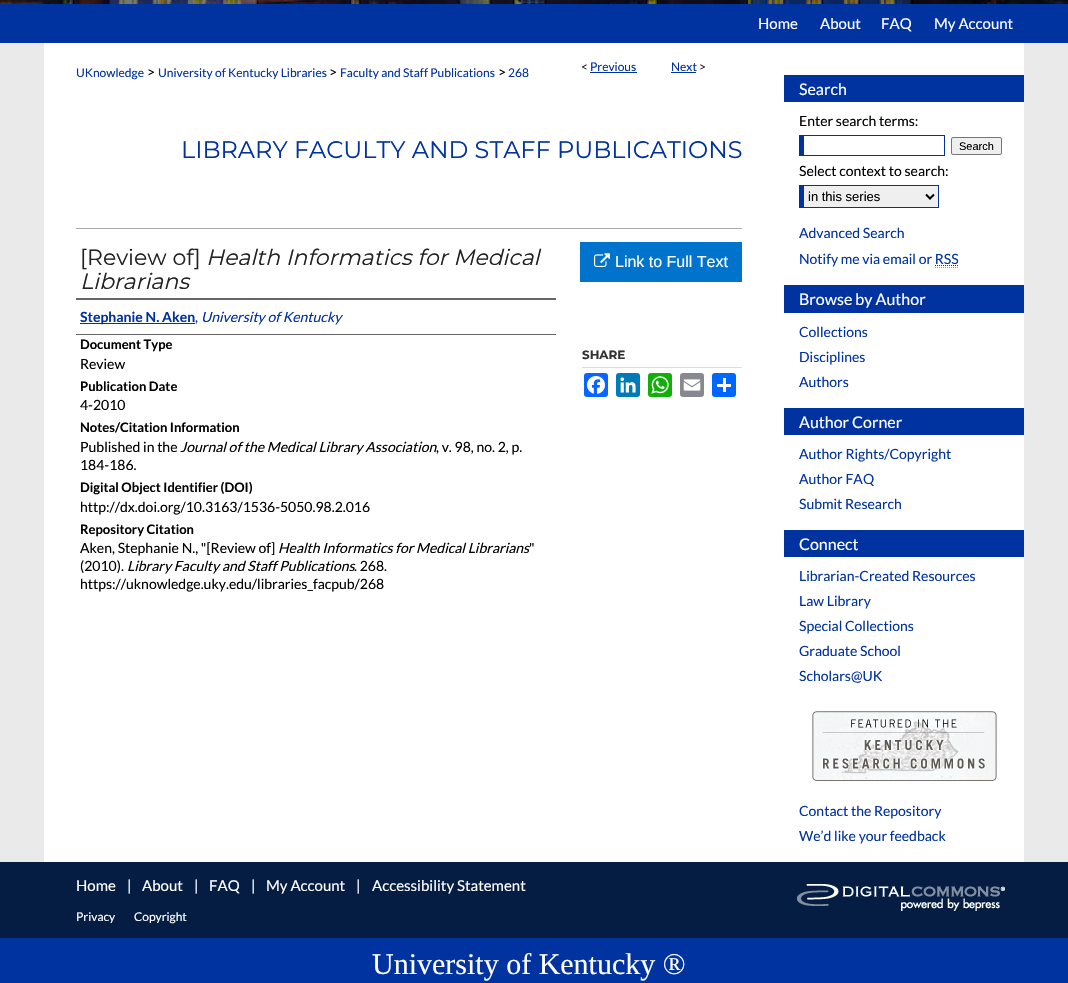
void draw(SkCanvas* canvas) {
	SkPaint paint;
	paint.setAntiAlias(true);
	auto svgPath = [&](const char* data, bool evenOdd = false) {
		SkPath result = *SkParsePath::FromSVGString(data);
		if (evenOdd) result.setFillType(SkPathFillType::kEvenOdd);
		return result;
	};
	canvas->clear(0xffeaeaea);
	canvas->drawImageRect(SkImages::DeferredFromEncodedData(SkData::MakeFromFileName("img1.png")), SkRect::MakeXYWH(0, 0, 1068, 43), SkSamplingOptions());
	canvas->drawImageRect(SkImages::DeferredFromEncodedData(SkData::MakeFromFileName("img2.png")), SkRect::MakeXYWH(0, 862, 1068, 121), SkSamplingOptions());
	SkFont f1(fontMgr->matchFamilyStyle("Lato", SkFontStyle::Normal()), 15);
	f1.setSubpixel(true);
	paint.setColor(0xffffffff);
	canvas->drawString("Home", 758, 29, f1, paint);
	canvas->drawString("About", 820, 29, f1, paint);
	canvas->drawString("FAQ", 881, 29, f1, paint);
	canvas->drawString("My Account", 934, 29, f1, paint);
	canvas->drawRect(SkRect::MakeXYWH(44, 43, 980, 819), paint);
	SkFont f2(fontMgr->matchFamilyStyle("Lato", SkFontStyle::Normal()), 12);
	f2.setSubpixel(true);
	paint.setColor(0xff222222);
	canvas->drawString("<", 581, 71, f2, paint);
	paint.setColor(0xff0133a0);
	canvas->drawString("Previous", 590, 71, f2, paint);
	canvas->drawRect(SkRect::MakeXYWH(590, 72, 47, 1), paint);
	canvas->drawString("Next", 671, 71, f2, paint);
	canvas->drawRect(SkRect::MakeXYWH(671, 72, 25, 1), paint);
	paint.setColor(0xff222222);
	canvas->drawString(">", 699, 71, f2, paint);
	paint.setColor(0xff0133a0);
	canvas->drawString("UKnowledge", 76, 77, f2, paint);
	SkFont f3(fontMgr->matchFamilyStyle("Lato", SkFontStyle::Normal()), 14);
	f3.setSubpixel(true);
	paint.setColor(0xff000000);
	canvas->drawString(">", 147, 77, f3, paint);
	paint.setColor(0xff0133a0);
	canvas->drawString("University of Kentucky Libraries", 158, 77, f2, paint);
	paint.setColor(0xff000000);
	canvas->drawString(">", 329, 77, f3, paint);
	paint.setColor(0xff0133a0);
	canvas->drawString("Faculty and Staff Publications", 340, 77, f2, paint);
	paint.setColor(0xff000000);
	canvas->drawString(">", 498, 77, f3, paint);
	paint.setColor(0xff0133a0);
	canvas->drawString("268", 508, 77, f2, paint);
	SkFont f4(fontMgr->matchFamilyStyle("Montserrat", SkFontStyle::Normal()), 24);
	f4.setSubpixel(true);
	canvas->drawString("LIBRARY FACULTY AND STAFF PUBLICATIONS", 181, 158, f4, paint);
	paint.setColor(0xffaaaaaa);
	canvas->drawRect(SkRect::MakeXYWH(76, 228, 666, 1), paint);
	SkFont f5(fontMgr->matchFamilyStyle("Montserrat", SkFontStyle::Normal()), 22);
	f5.setSubpixel(true);
	paint.setColor(0xff222222);
	canvas->drawString("[Review of]", 80, 265, f5, paint);
	SkFont f6(fontMgr->matchFamilyStyle("Montserrat", SkFontStyle::Italic()), 22);
	f6.setSubpixel(true);
	canvas->drawString("Health Informatics for Medical", 206, 265, f6, paint);
	canvas->drawString("Librarians", 80, 289, f6, paint);
	paint.setColor(0xff666666);
	canvas->drawRect(SkRect::MakeXYWH(76, 298, 480, 2), paint);
	canvas->drawRect(SkRect::MakeXYWH(76, 334, 480, 1), paint);
	paint.setColor(0xff0133a0);
	canvas->drawRect(SkRect::MakeXYWH(80, 323, 115, 1), paint);
	SkFont f7(fontMgr->matchFamilyStyle("Lato", SkFontStyle::Bold()), 14);
	f7.setSubpixel(true);
	canvas->drawString("Stephanie N. Aken", 80, 322, f7, paint);
	canvas->drawString(",", 195, 322, f3, paint);
	SkFont f8(fontMgr->matchFamilyStyle("Lato", SkFontStyle::Italic()), 14);
	f8.setSubpixel(true);
	canvas->drawString("University of Kentucky", 201, 322, f8, paint);
	SkFont f9(fontMgr->matchFamilyStyle("Lato", SkFontStyle::Bold()), 13);
	f9.setSubpixel(true);
	paint.setColor(0xff000000);
	canvas->drawString("Document Type", 80, 349, f9, paint);
	canvas->drawString("Review", 80, 369, f3, paint);
	canvas->drawString("Publication Date", 80, 391, f9, paint);
	canvas->drawString("4-2010", 80, 410, f3, paint);
	canvas->drawString("Notes/Citation Information", 80, 432, f9, paint);
	canvas->drawString("Published in the", 80, 452, f3, paint);
	canvas->drawString("Journal of the Medical Library Association", 180, 452, f8, paint);
	canvas->drawString(", v. 98, no. 2, p.", 436, 452, f3, paint);
	canvas->drawString("184-186.", 80, 470, f3, paint);
	canvas->drawString("Digital Object Identifier (DOI)", 80, 492, f9, paint);
	canvas->drawString("http://dx.doi.org/10.3163/1536-5050.98.2.016", 80, 512, f3, paint);
	canvas->drawString("Repository Citation", 80, 534, f9, paint);
	canvas->drawString("Aken, Stephanie N., \"[Review of]", 80, 553, f3, paint);
	canvas->drawString("Health Informatics for Medical Librarians", 278, 553, f8, paint);
	canvas->drawString("\"", 529, 553, f3, paint);
	canvas->drawString("(2010).", 80, 571, f3, paint);
	canvas->drawString("Library Faculty and Staff Publications", 127, 571, f8, paint);
	canvas->drawString(". 268.", 354, 571, f3, paint);
	canvas->drawString("https://uknowledge.uky.edu/libraries_facpub/268", 80, 589, f3, paint);
	paint.setColor(0xff0074cc);
	canvas->drawRect(SkRect::MakeXYWH(580, 242, 162, 40), paint);
	canvas->drawImageRect(SkImages::DeferredFromEncodedData(SkData::MakeFromFileName("img3.png")), SkRect::MakeXYWH(594, 253, 16, 14), SkSamplingOptions());
	SkFont f10(fontMgr->matchFamilyStyle("Liberation Sans", SkFontStyle::Normal()), 16);
	f10.setSubpixel(true);
	paint.setColor(0xffffffff);
	canvas->drawString("Link to Full Text", 615, 267, f10, paint);
	paint.setColor(0xffdddddd);
	canvas->drawRect(SkRect::MakeXYWH(582, 367, 160, 1), paint);
	SkFont f11(fontMgr->matchFamilyStyle("Montserrat", SkFontStyle::Bold()), 12);
	f11.setSubpixel(true);
	paint.setColor(0xff333333);
	canvas->drawString("SHARE", 582, 359, f11, paint);
	paint.setColor(0xff0866ff);
	canvas->drawRoundRect(SkRect::MakeXYWH(584, 373, 24, 24), 3, 3, paint);
	canvas->drawImageRect(SkImages::DeferredFromEncodedData(SkData::MakeFromFileName("img4.png")), SkRect::MakeXYWH(587, 376, 18, 18), SkSamplingOptions());
	paint.setColor(0xff007bb5);
	canvas->drawRoundRect(SkRect::MakeXYWH(616, 373, 24, 24), 3, 3, paint);
	canvas->drawImageRect(SkImages::DeferredFromEncodedData(SkData::MakeFromFileName("img5.png")), SkRect::MakeXYWH(620, 377, 16, 16), SkSamplingOptions());
	paint.setColor(0xff12af0a);
	canvas->drawRoundRect(SkRect::MakeXYWH(648, 373, 24, 24), 3, 3, paint);
	canvas->drawImageRect(SkImages::DeferredFromEncodedData(SkData::MakeFromFileName("img6.png")), SkRect::MakeXYWH(651, 376, 18, 18), SkSamplingOptions());
	paint.setColor(0xff888990);
	canvas->drawRoundRect(SkRect::MakeXYWH(680, 373, 24, 24), 3, 3, paint);
	canvas->drawImageRect(SkImages::DeferredFromEncodedData(SkData::MakeFromFileName("img7.png")), SkRect::MakeXYWH(683, 379, 18, 12), SkSamplingOptions());
	paint.setColor(0xff0166ff);
	canvas->drawRoundRect(SkRect::MakeXYWH(712, 373, 24, 24), 3, 3, paint);
	paint.setColor(0xffffffff);
	canvas->drawRect(SkRect::MakeXYWH(723, 378, 3, 14), paint);
	canvas->drawRect(SkRect::MakeXYWH(717, 384, 14, 3), paint);
	paint.setColor(0xff0133a0);
	canvas->drawRect(SkRect::MakeXYWH(784, 75, 240, 27), paint);
	SkFont f12(fontMgr->matchFamilyStyle("Lato", SkFontStyle::Normal()), 16);
	f12.setSubpixel(true);
	paint.setColor(0xffffffff);
	canvas->drawString("Search", 799, 95, f12, paint);
	paint.setColor(0xff000000);
	canvas->drawString("Enter search terms:", 799, 126, f3, paint);
	paint.setColor(0xff0133a0);
	canvas->drawRect(SkRect::MakeXYWH(799, 135, 146, 1), paint);
	canvas->drawRect(SkRect::MakeXYWH(944, 135, 1, 21), paint);
	canvas->drawRect(SkRect::MakeXYWH(799, 155, 146, 1), paint);
	canvas->drawRect(SkRect::MakeXYWH(799, 135, 5, 21), paint);
	paint.setColor(0xffefefef);
	canvas->drawRoundRect(SkRect::MakeXYWH(951.5, 137.5, 50, 17), 1.5, 1.5, paint);
	paint.setStroke(true);
	paint.setStrokeWidth(1);
	paint.setColor(0xff767676);
	canvas->drawRoundRect(SkRect::MakeXYWH(951.5, 137.5, 50, 17), 1.5, 1.5, paint);
	SkFont f13(fontMgr->matchFamilyStyle("Liberation Sans", SkFontStyle::Normal()), 11);
	f13.setSubpixel(true);
	paint.setStroke(false);
	paint.setColor(0xff000000);
	canvas->drawString("Search", 959, 150, f13, paint);
	canvas->drawString("Select context to search:", 799, 176, f3, paint);
	paint.setColor(0xffefefef);
	canvas->drawRect(SkRect::MakeXYWH(804, 186, 134, 21), paint);
	paint.setColor(0xff0133a0);
	canvas->drawRect(SkRect::MakeXYWH(799, 185, 140, 1), paint);
	canvas->drawRect(SkRect::MakeXYWH(938, 185, 1, 23), paint);
	canvas->drawRect(SkRect::MakeXYWH(799, 207, 140, 1), paint);
	canvas->drawRect(SkRect::MakeXYWH(799, 185, 5, 23), paint);
	paint.setStroke(true);
	paint.setStrokeWidth(2);
	paint.setColor(0xff000000);
	canvas->drawPath(svgPath("M926 194.5L930 198.5L934 194.5"), paint);
	SkFont f14(fontMgr->matchFamilyStyle("Liberation Sans", SkFontStyle::Normal()), 13);
	f14.setSubpixel(true);
	paint.setStroke(false);
	canvas->drawString("in this series", 808, 201, f14, paint);
	paint.setColor(0xff0133a0);
	canvas->drawString("Advanced Search", 799, 238, f3, paint);
	canvas->drawString("Notify me via email or RSS", 799, 264, f3, paint);
	paint.setStroke(true);
	paint.setStrokeWidth(1);
	paint.setPathEffect(SkDashPathEffect::Make({{1, 1}}, 0));
	canvas->drawPath(svgPath("M935 265.5H958.5"), paint);
	paint.setPathEffect(nullptr);
	paint.setColor(0xff999999);
	paint.setPathEffect(SkDashPathEffect::Make({{1, 1}}, 0));
	canvas->drawPath(svgPath("M935 267.5H959"), paint);
	paint.setPathEffect(nullptr);
	paint.setStroke(false);
	paint.setColor(0xff0133a0);
	canvas->drawRect(SkRect::MakeXYWH(784, 285, 240, 28), paint);
	paint.setColor(0xffffffff);
	canvas->drawString("Browse by Author", 799, 305, f12, paint);
	paint.setColor(0xff0133a0);
	canvas->drawString("Collections", 799, 337, f3, paint);
	canvas->drawString("Disciplines", 799, 362, f3, paint);
	canvas->drawString("Authors", 799, 387, f3, paint);
	canvas->drawRect(SkRect::MakeXYWH(784, 408, 240, 27), paint);
	paint.setColor(0xffffffff);
	canvas->drawString("Author Corner", 799, 428, f12, paint);
	paint.setColor(0xff0133a0);
	canvas->drawString("Author Rights/Copyright", 799, 459, f3, paint);
	canvas->drawString("Author FAQ", 799, 484, f3, paint);
	canvas->drawString("Submit Research", 799, 509, f3, paint);
	canvas->drawRect(SkRect::MakeXYWH(784, 530, 240, 27), paint);
	paint.setColor(0xffffffff);
	canvas->drawString("Connect", 799, 550, f12, paint);
	paint.setColor(0xff0133a0);
	canvas->drawString("Librarian-Created Resources", 799, 581, f3, paint);
	canvas->drawString("Law Library", 799, 606, f3, paint);
	canvas->drawString("Special Collections", 799, 631, f3, paint);
	canvas->drawString("Graduate School", 799, 656, f3, paint);
	canvas->drawString("Scholars@UK", 799, 681, f3, paint);
	canvas->drawImageRect(SkImages::DeferredFromEncodedData(SkData::MakeFromFileName("img8.png")), SkRect::MakeXYWH(812, 711, 185, 70), SkSamplingOptions());
	canvas->drawString("Contact the Repository", 799, 816, f3, paint);
	canvas->drawString("We’d like your feedback", 799, 841, f3, paint);
	paint.setColor(0xffffffff);
	canvas->drawString("Home", 76, 891, f1, paint);
	canvas->drawString("|", 127, 891, f1, paint);
	canvas->drawString("About", 142, 891, f1, paint);
	canvas->drawString("|", 194, 891, f1, paint);
	canvas->drawString("FAQ", 209, 891, f1, paint);
	canvas->drawString("|", 251, 891, f1, paint);
	canvas->drawString("My Account", 266, 891, f1, paint);
	canvas->drawString("|", 356, 891, f1, paint);
	canvas->drawString("Accessibility Statement", 372, 891, f1, paint);
	canvas->drawImageRect(SkImages::DeferredFromEncodedData(SkData::MakeFromFileName("img9.png")), SkRect::MakeXYWH(797, 884, 208, 27), SkSamplingOptions());
	canvas->drawString("Privacy", 76, 921, f2, paint);
	canvas->drawString("Copyright", 134, 921, f2, paint);
	SkFont f15(fontMgr->matchFamilyStyle("Liberation Serif", SkFontStyle::Normal()), 30);
	f15.setSubpixel(true);
	canvas->drawString("University of Kentucky ®", 372, 974, f15, paint);
}
